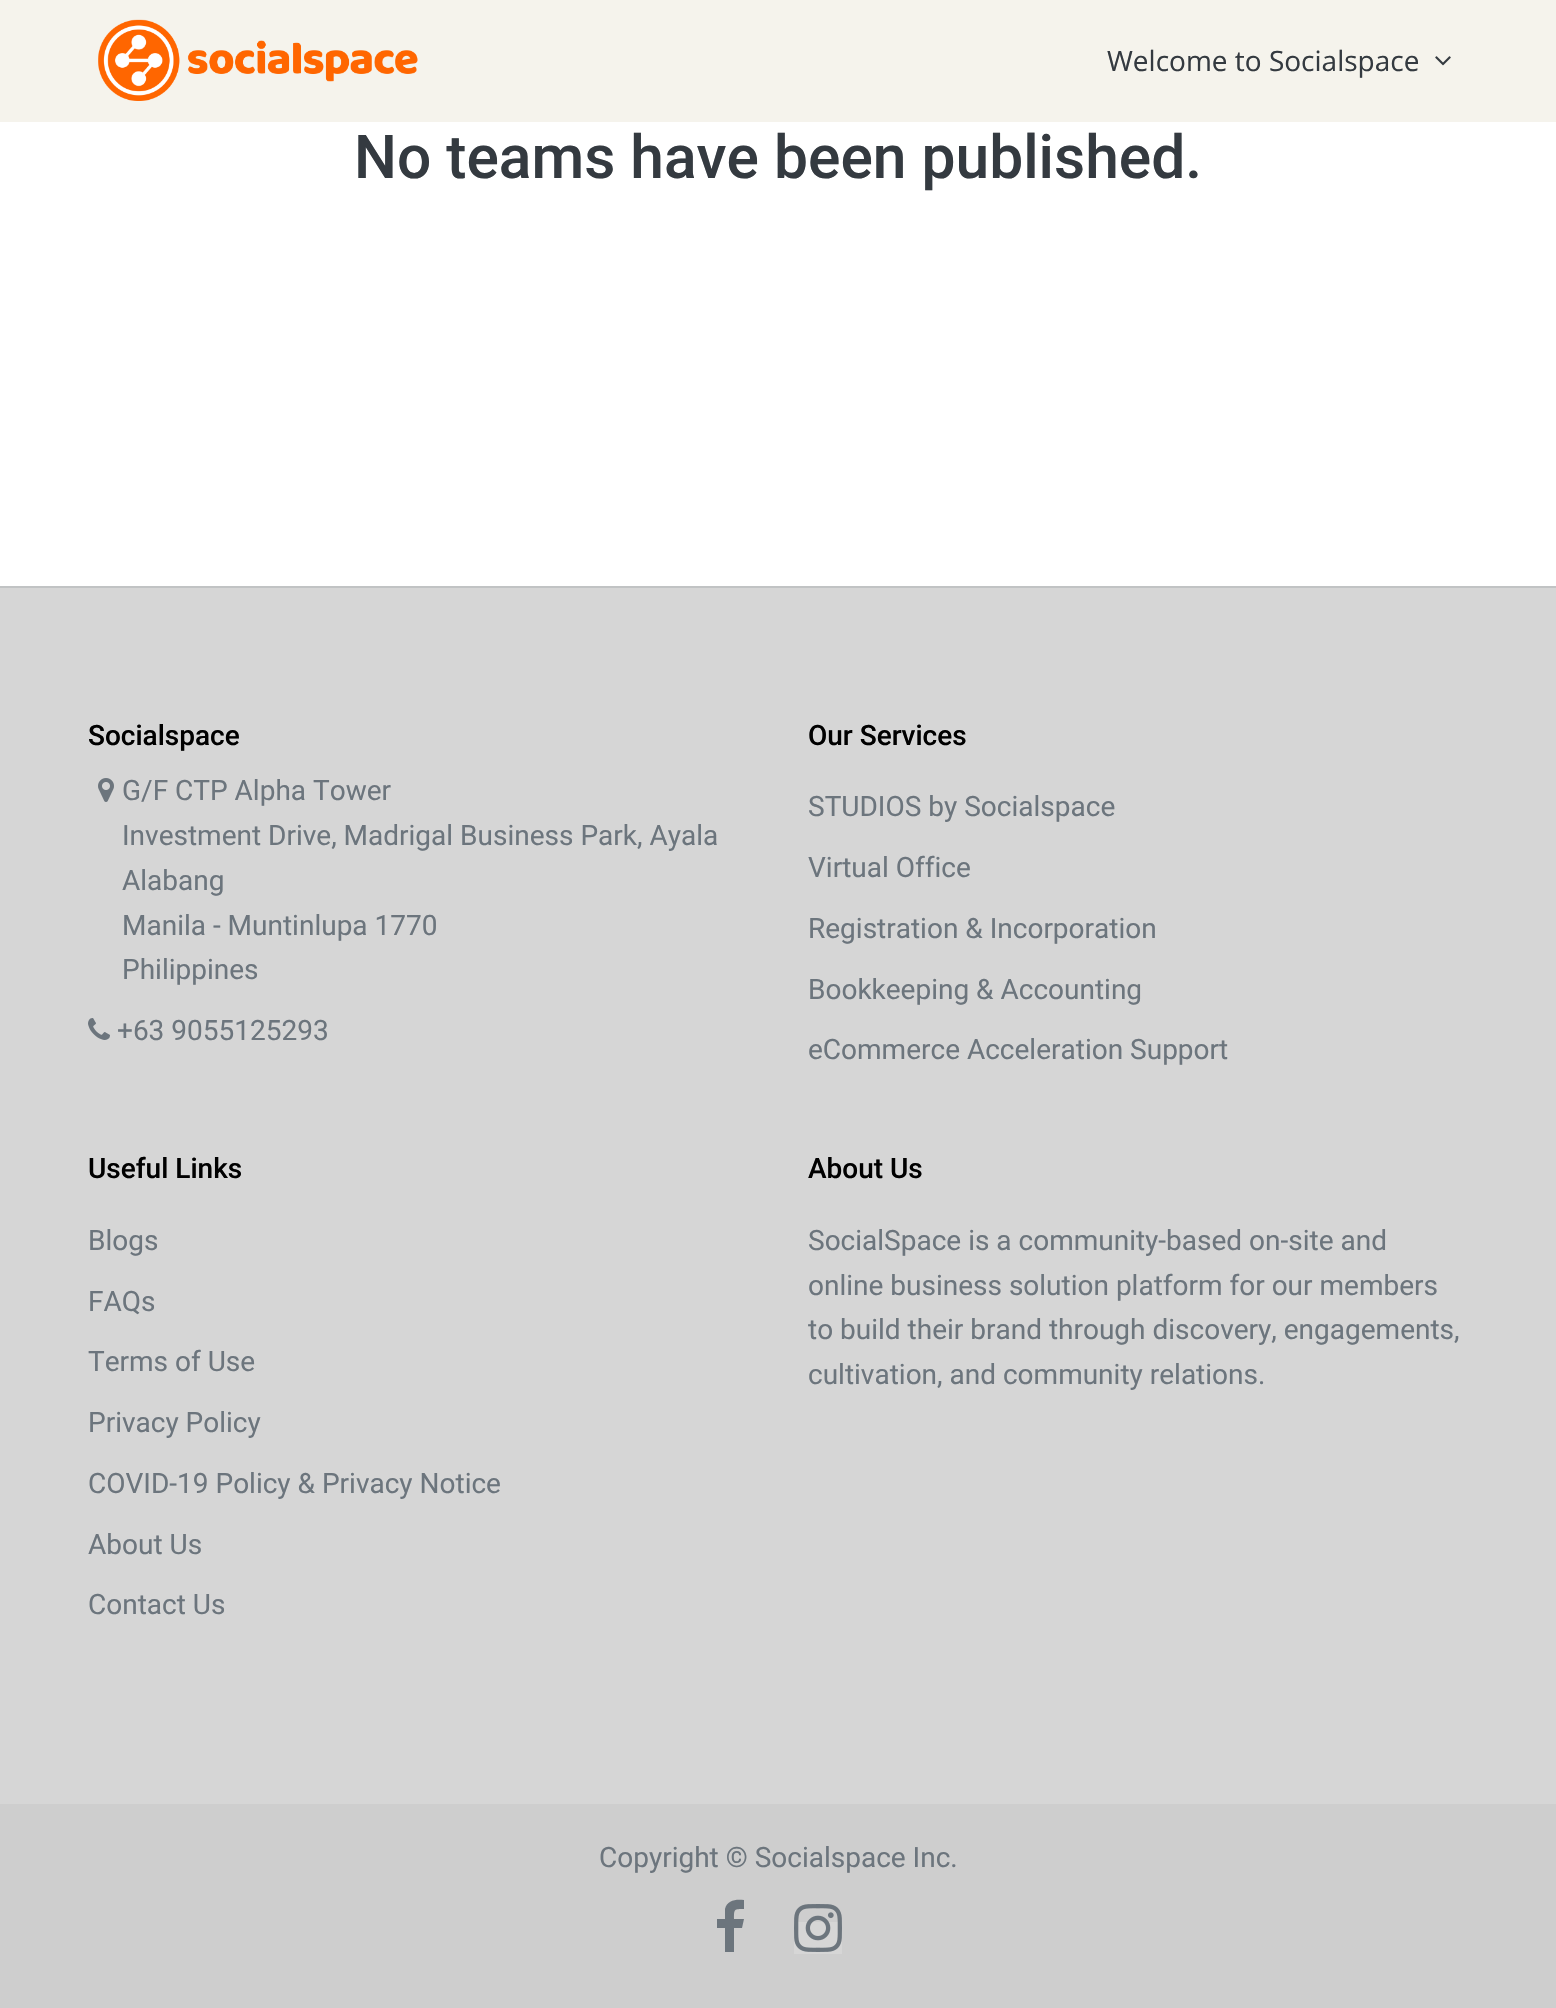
void draw(SkCanvas* canvas) {
	SkPaint paint;
	paint.setAntiAlias(true);
	auto svgPath = [&](const char* data, bool evenOdd = false) {
		SkPath result = *SkParsePath::FromSVGString(data);
		if (evenOdd) result.setFillType(SkPathFillType::kEvenOdd);
		return result;
	};
	canvas->clear(0xffffffff);
	paint.setColor(0xfff5f3ec);
	canvas->drawRect(SkRect::MakeXYWH(0, 0, 1556, 122), paint);
	canvas->drawImageRect(SkImages::DeferredFromEncodedData(SkData::MakeFromFileName("img1.png")), SkRect::MakeXYWH(98, 19, 320, 82), SkSamplingOptions());
	SkFont f1(fontMgr->matchFamilyStyle("Open Sans", SkFontStyle::Normal()), 28);
	f1.setSubpixel(true);
	paint.setColor(0xff343a40);
	canvas->drawString("Welcome to Socialspace", 1107, 71, f1, paint);
	canvas->drawImageRect(SkImages::DeferredFromEncodedData(SkData::MakeFromFileName("img2.png")), SkRect::MakeXYWH(1435, 56, 16, 10), SkSamplingOptions());
	SkFont f2(fontMgr->matchFamilyStyle("Roboto", SkFontStyle(500, SkFontStyle::kNormal_Width, SkFontStyle::kUpright_Slant)), 60.5);
	f2.setSubpixel(true);
	canvas->drawString("No teams have been published.", 354, 178, f2, paint);
	paint.setColor(0xffd6d6d6);
	canvas->drawRect(SkRect::MakeXYWH(0, 588, 1556, 1216), paint);
	paint.setColor(0xffc1c3c4);
	canvas->drawRect(SkRect::MakeXYWH(0, 586, 1556, 2), paint);
	SkFont f3(fontMgr->matchFamilyStyle("Roboto", SkFontStyle(500, SkFontStyle::kNormal_Width, SkFontStyle::kUpright_Slant)), 28);
	f3.setSubpixel(true);
	paint.setColor(0xff000000);
	canvas->drawString("Socialspace", 88, 745, f3, paint);
	canvas->drawImageRect(SkImages::DeferredFromEncodedData(SkData::MakeFromFileName("img3.png")), SkRect::MakeXYWH(98, 778, 16, 24), SkSamplingOptions());
	SkFont f4(fontMgr->matchFamilyStyle("Roboto", SkFontStyle::Normal()), 28);
	f4.setSubpixel(true);
	paint.setColor(0xff6c757d);
	canvas->drawString("G/F CTP Alpha Tower", 122, 800, f4, paint);
	canvas->drawString("Investment Drive, Madrigal Business Park, Ayala", 122, 845, f4, paint);
	canvas->drawString("Alabang", 122, 890, f4, paint);
	canvas->drawString("Manila - Muntinlupa 1770", 122, 935, f4, paint);
	canvas->drawString("Philippines", 122, 979, f4, paint);
	canvas->drawImageRect(SkImages::DeferredFromEncodedData(SkData::MakeFromFileName("img4.png")), SkRect::MakeXYWH(88, 1018, 22, 22), SkSamplingOptions());
	canvas->drawString("+63 9055125293", 117, 1040, f4, paint);
	paint.setColor(0xff000000);
	canvas->drawString("Our Services", 808, 745, f3, paint);
	paint.setColor(0xff6c757d);
	canvas->drawString("STUDIOS by Socialspace", 808, 816, f4, paint);
	canvas->drawString("Virtual Office", 808, 877, f4, paint);
	canvas->drawString("Registration & Incorporation", 808, 938, f4, paint);
	canvas->drawString("Bookkeeping & Accounting", 808, 999, f4, paint);
	canvas->drawString("eCommerce Acceleration Support", 808, 1059, f4, paint);
	paint.setColor(0xff000000);
	canvas->drawString("Useful Links", 88, 1178, f3, paint);
	paint.setColor(0xff6c757d);
	canvas->drawString("Blogs", 88, 1250, f4, paint);
	canvas->drawString("FAQs", 88, 1311, f4, paint);
	canvas->drawString("Terms of Use", 88, 1371, f4, paint);
	canvas->drawString("Privacy Policy", 88, 1432, f4, paint);
	canvas->drawString("COVID-19 Policy & Privacy Notice", 88, 1493, f4, paint);
	canvas->drawString("About Us", 88, 1554, f4, paint);
	canvas->drawString("Contact Us", 88, 1614, f4, paint);
	paint.setColor(0xff000000);
	canvas->drawString("About Us", 808, 1178, f3, paint);
	paint.setColor(0xff6c757d);
	canvas->drawString("SocialSpace is a community-based on-site and", 808, 1250, f4, paint);
	canvas->drawString("online business solution platform for our members", 808, 1295, f4, paint);
	canvas->drawString("to build their brand through discovery, engagements,", 808, 1339, f4, paint);
	canvas->drawString("cultivation, and community relations.", 808, 1384, f4, paint);
	paint.setColor(0xffcecece);
	canvas->drawRect(SkRect::MakeXYWH(0, 1804, 1556, 204), paint);
	paint.setColor(0xff6c757d);
	canvas->drawString("Copyright © Socialspace Inc.", 599, 1867, f4, paint);
	canvas->drawPath(svgPath("M744 1900V1909C734 1909 734 1909 734 1919H744L742 1928H734V1952H725V1928H717V1919H725V1909C727 1900 736 1899 744 1900Z"), paint);
	paint.setColor(0xffd6d6d6);
	canvas->drawRect(SkRect::MakeXYWH(794, 1922, 48, 32), paint);
	canvas->drawImageRect(SkImages::DeferredFromEncodedData(SkData::MakeFromFileName("img5.png")), SkRect::MakeXYWH(794, 1904, 48, 48), SkSamplingOptions());
}
